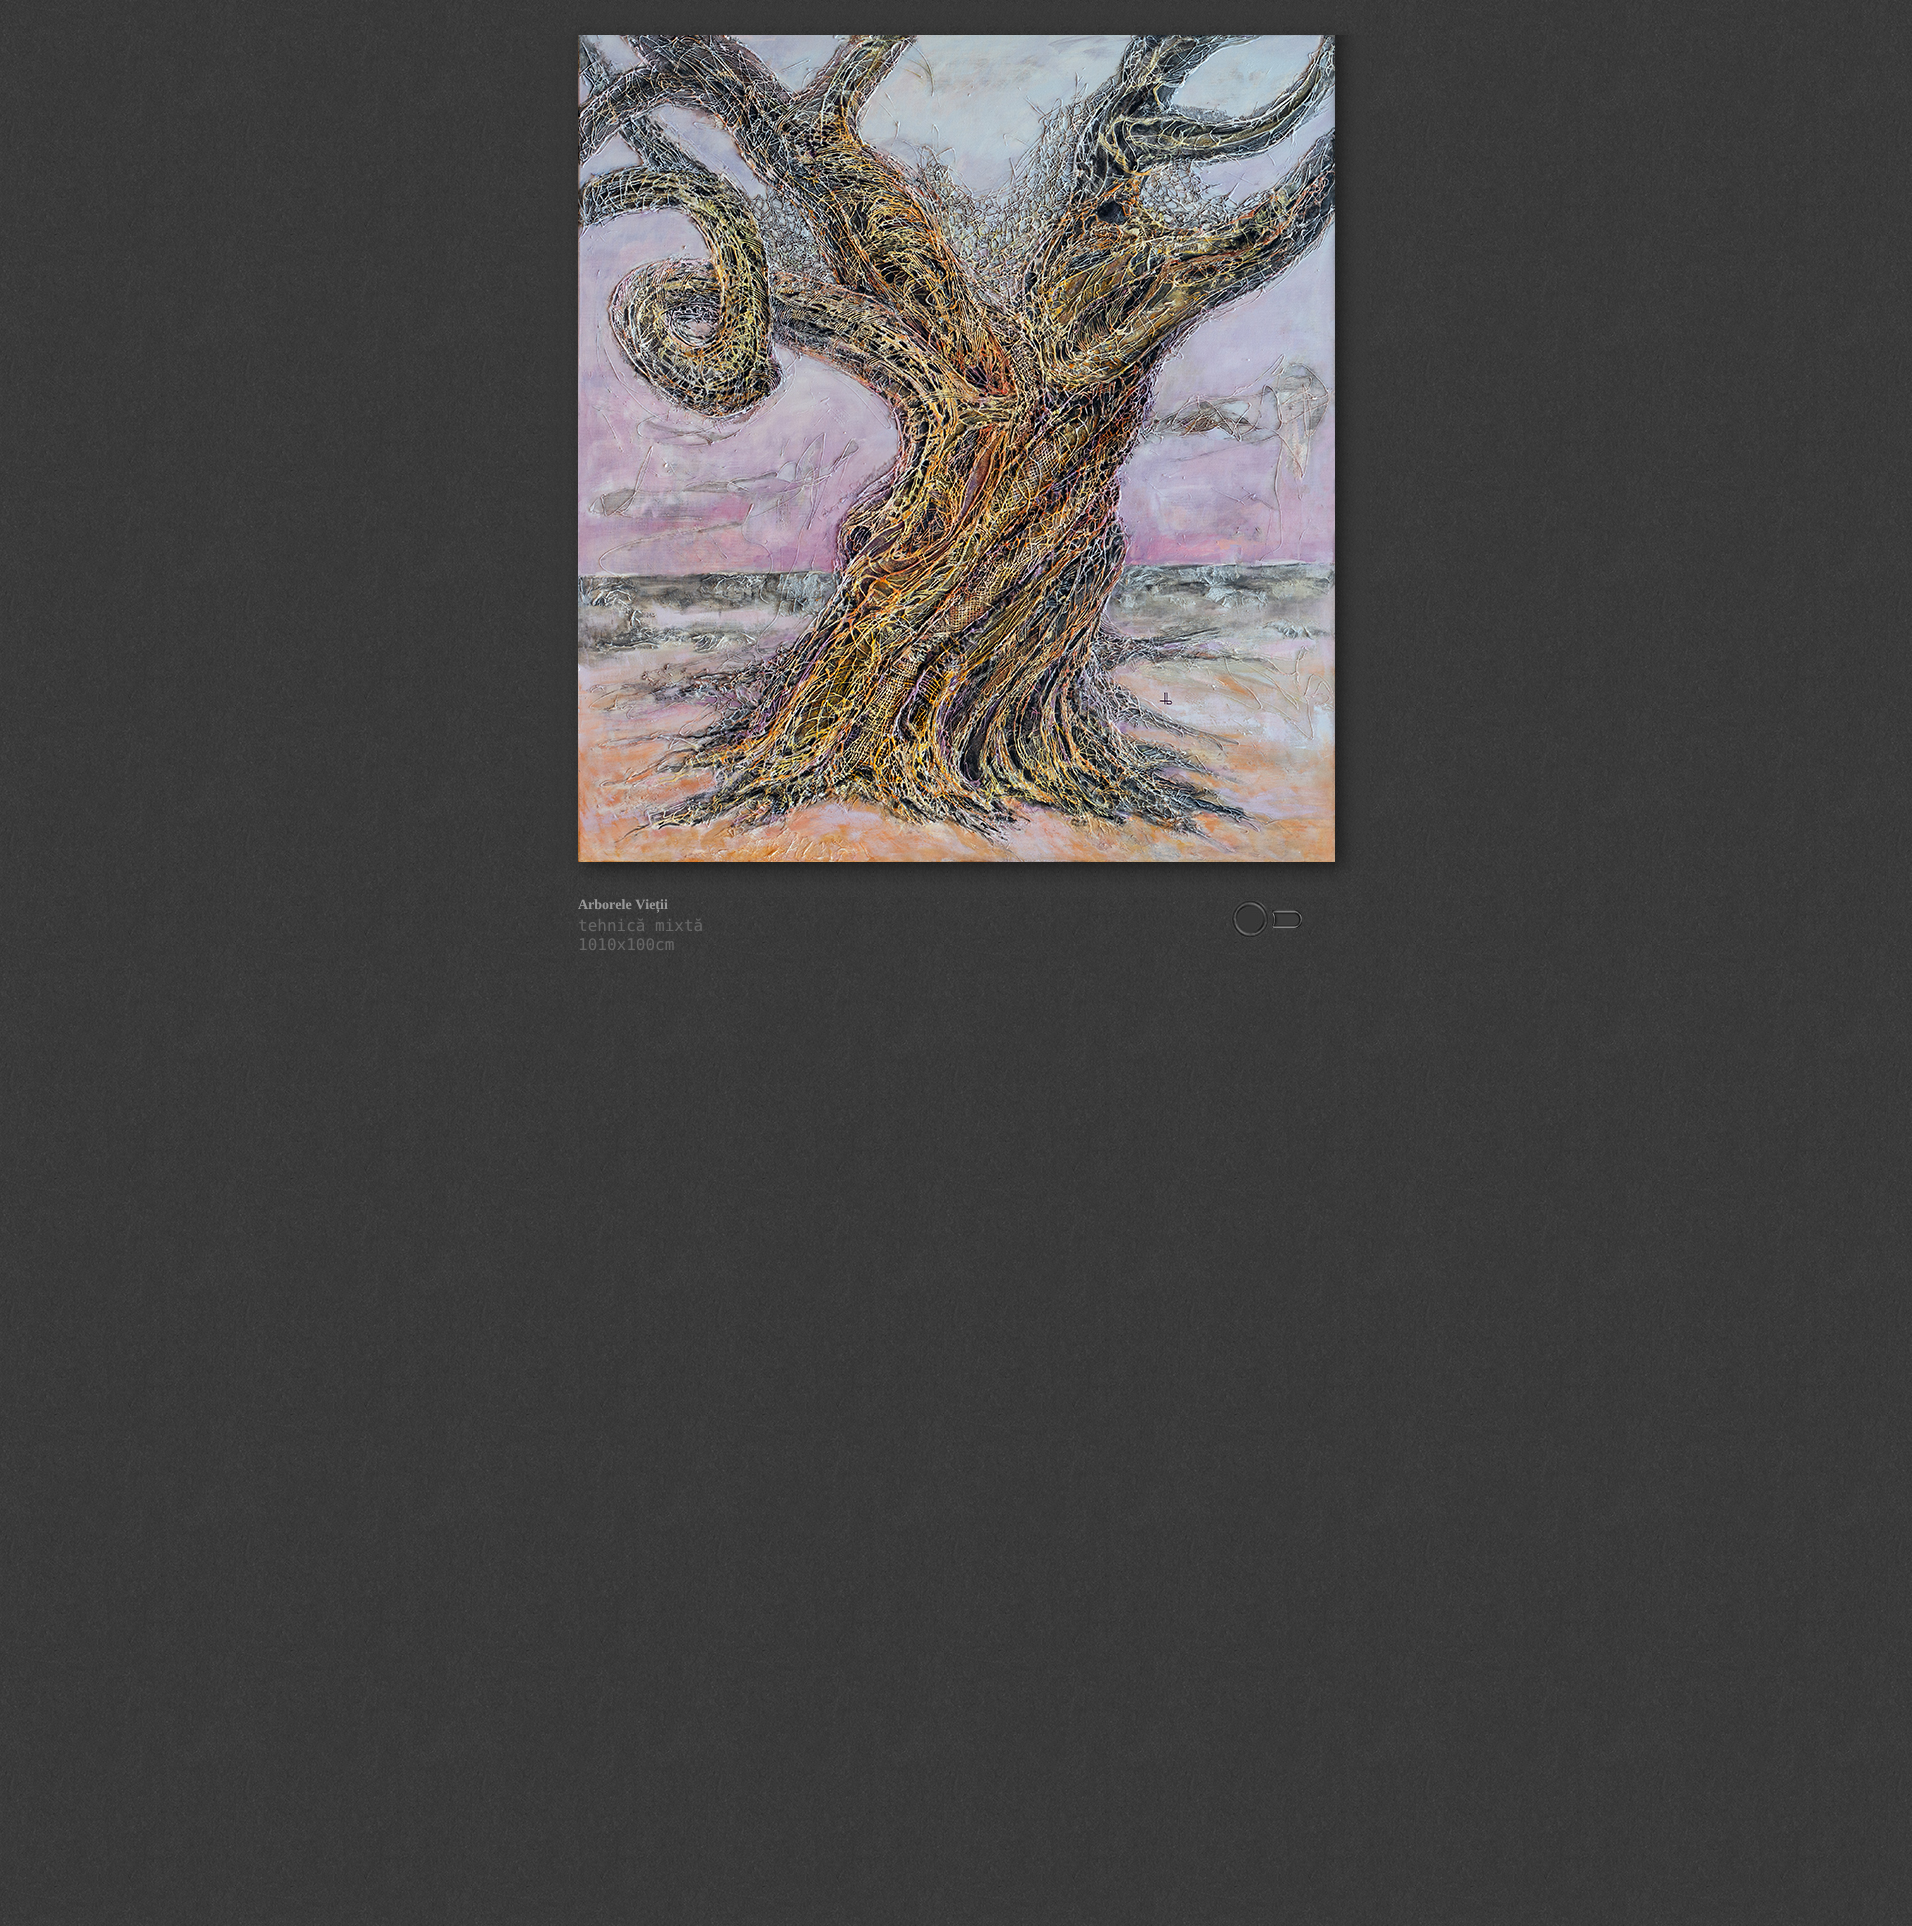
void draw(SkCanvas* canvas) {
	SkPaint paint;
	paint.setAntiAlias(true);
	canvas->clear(0xffffffff);
	canvas->drawImageRect(SkImages::DeferredFromEncodedData(SkData::MakeFromFileName("img1.png")), SkRect::MakeXYWH(0, 0, 1912, 1926), SkSamplingOptions());
	canvas->drawImageRect(SkImages::DeferredFromEncodedData(SkData::MakeFromFileName("img2.png")), SkRect::MakeXYWH(543, 0, 35, 35), SkSamplingOptions());
	canvas->drawImageRect(SkImages::DeferredFromEncodedData(SkData::MakeFromFileName("img3.png")), SkRect::MakeXYWH(578, 0, 757, 35), SkSamplingOptions());
	canvas->drawImageRect(SkImages::DeferredFromEncodedData(SkData::MakeFromFileName("img4.png")), SkRect::MakeXYWH(1335, 0, 35, 35), SkSamplingOptions());
	canvas->drawImageRect(SkImages::DeferredFromEncodedData(SkData::MakeFromFileName("img5.png")), SkRect::MakeXYWH(543, 35, 35, 827), SkSamplingOptions());
	canvas->drawImageRect(SkImages::DeferredFromEncodedData(SkData::MakeFromFileName("img6.png")), SkRect::MakeXYWH(578, 35, 757, 827), SkSamplingOptions());
	canvas->drawImageRect(SkImages::DeferredFromEncodedData(SkData::MakeFromFileName("img7.png")), SkRect::MakeXYWH(1335, 35, 35, 807), SkSamplingOptions());
	canvas->drawImageRect(SkImages::DeferredFromEncodedData(SkData::MakeFromFileName("img8.png")), SkRect::MakeXYWH(1335, 842, 35, 20), SkSamplingOptions());
	canvas->drawImageRect(SkImages::DeferredFromEncodedData(SkData::MakeFromFileName("img9.png")), SkRect::MakeXYWH(543, 862, 35, 35), SkSamplingOptions());
	canvas->drawImageRect(SkImages::DeferredFromEncodedData(SkData::MakeFromFileName("img10.png")), SkRect::MakeXYWH(613, 862, 722, 35), SkSamplingOptions());
	canvas->drawImageRect(SkImages::DeferredFromEncodedData(SkData::MakeFromFileName("img11.png")), SkRect::MakeXYWH(578, 862, 35, 35), SkSamplingOptions());
	canvas->drawImageRect(SkImages::DeferredFromEncodedData(SkData::MakeFromFileName("img12.png")), SkRect::MakeXYWH(1335, 862, 35, 35), SkSamplingOptions());
	SkFont f1(fontMgr->matchFamilyStyle("Liberation Serif", SkFontStyle::Bold()), 14);
	f1.setSubpixel(true);
	paint.setColor(0xff999999);
	canvas->drawString("Arborele Vieții", 578, 909, f1, paint);
	canvas->drawImageRect(SkImages::DeferredFromEncodedData(SkData::MakeFromFileName("img13.png")), SkRect::MakeXYWH(1231, 898, 38, 42), SkSamplingOptions());
	canvas->drawImageRect(SkImages::DeferredFromEncodedData(SkData::MakeFromFileName("img14.png")), SkRect::MakeXYWH(1270, 898, 34, 42), SkSamplingOptions());
	SkFont f2(fontMgr->matchFamilyStyle("DejaVu Sans Mono", SkFontStyle::Normal()), 16);
	f2.setSubpixel(true);
	paint.setColor(0xff666666);
	canvas->drawString("tehnică mixtă", 578, 931, f2, paint);
	canvas->drawString("1010x100cm", 578, 950, f2, paint);
}
